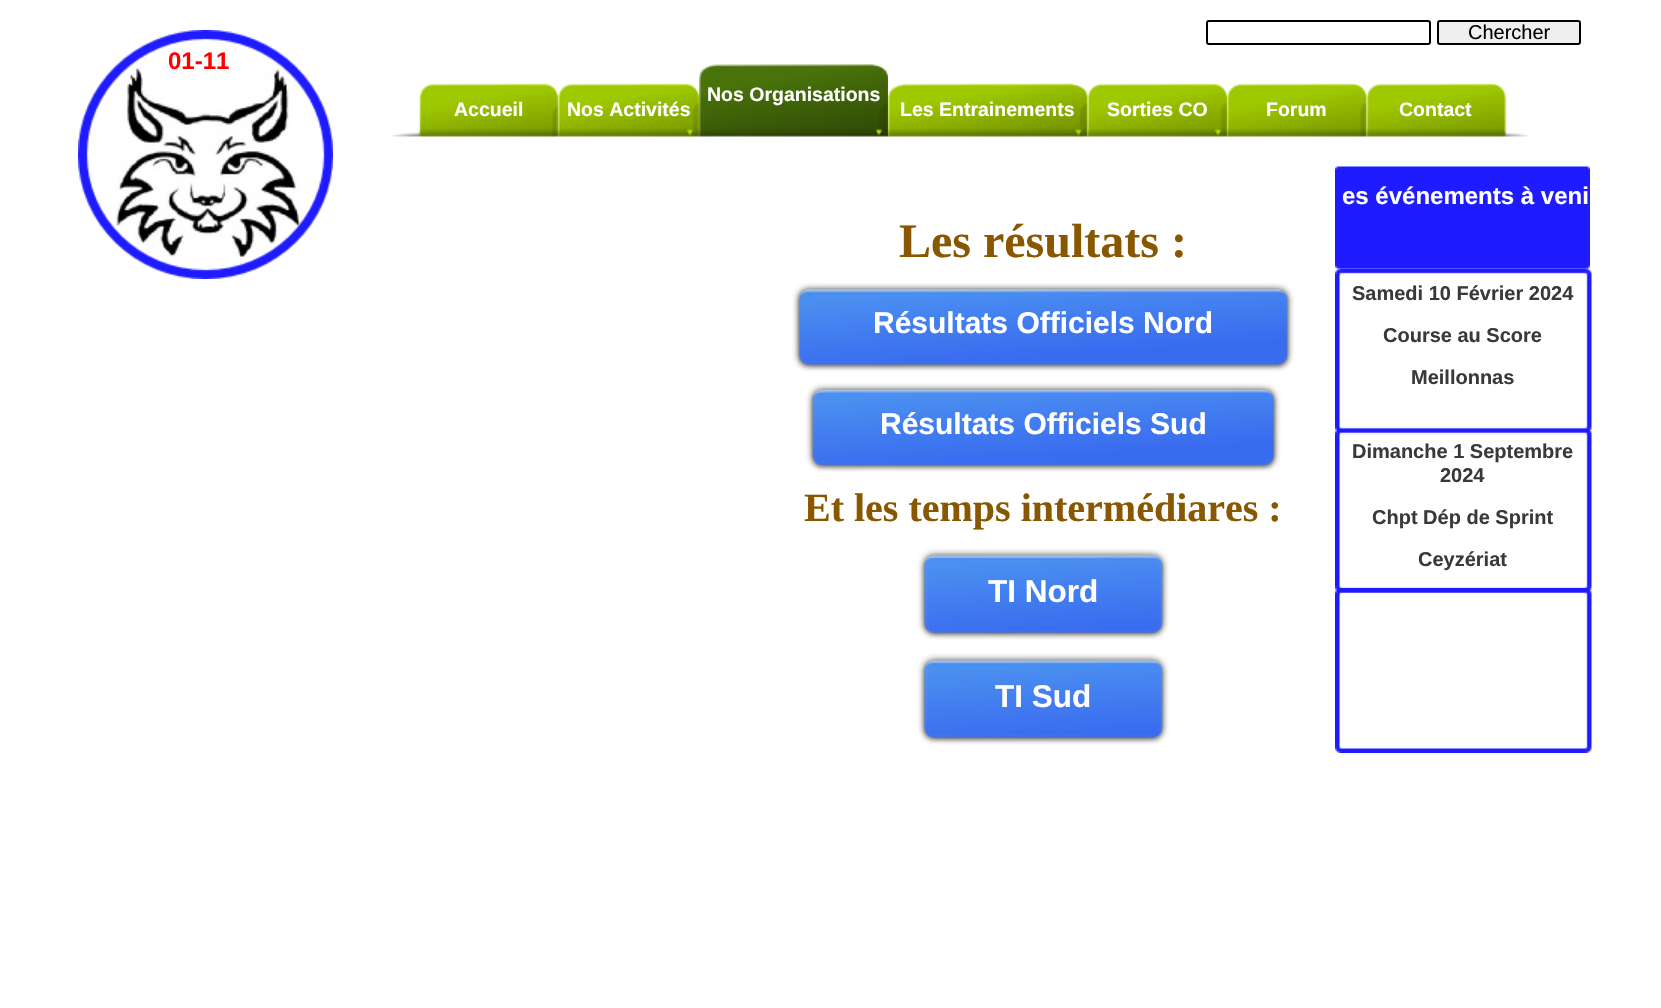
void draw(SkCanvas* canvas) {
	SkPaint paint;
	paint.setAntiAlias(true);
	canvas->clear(0xffffffff);
	canvas->drawImageRect(SkImages::DeferredFromEncodedData(SkData::MakeFromFileName("img2.png")), SkRect::MakeXYWH(115, 67, 186, 190), SkSamplingOptions());
	canvas->drawImageRect(SkImages::DeferredFromEncodedData(SkData::MakeFromFileName("img1.png")), SkRect::MakeXYWH(78, 30, 255, 249), SkSamplingOptions());
	paint.setStroke(true);
	paint.setStrokeWidth(2);
	paint.setColor(0xff000000);
	canvas->drawRoundRect(SkRect::MakeXYWH(1207, 21, 223, 23), 2, 2, paint);
	paint.setStroke(false);
	paint.setColor(0xffefefef);
	canvas->drawRoundRect(SkRect::MakeXYWH(1438, 21, 142, 23), 2, 2, paint);
	paint.setStroke(true);
	paint.setColor(0xff000000);
	canvas->drawRoundRect(SkRect::MakeXYWH(1438, 21, 142, 23), 2, 2, paint);
	SkFont f1(fontMgr->matchFamilyStyle("Liberation Sans", SkFontStyle::Normal()), 20);
	f1.setSubpixel(true);
	paint.setStroke(false);
	canvas->drawString("Chercher", 1468, 39, f1, paint);
	SkFont f2(fontMgr->matchFamilyStyle("Liberation Sans", SkFontStyle::Bold()), 24);
	f2.setSubpixel(true);
	paint.setColor(0xffff0000);
	canvas->drawString("01-11", 168, 69, f2, paint);
	canvas->drawImageRect(SkImages::DeferredFromEncodedData(SkData::MakeFromFileName("img3.png")), SkRect::MakeXYWH(699, 64, 189, 73), SkSamplingOptions());
	SkFont f3(fontMgr->matchFamilyStyle("Liberation Sans", SkFontStyle::Bold()), 19.5);
	f3.setSubpixel(true);
	paint.setColor(0xffffffff);
	canvas->drawString("Nos Organisations", 707, 101, f3, paint);
	canvas->drawImageRect(SkImages::DeferredFromEncodedData(SkData::MakeFromFileName("img4.png")), SkRect::MakeXYWH(391, 83, 167, 54), SkSamplingOptions());
	canvas->drawString("Accueil", 454, 116, f3, paint);
	canvas->drawImageRect(SkImages::DeferredFromEncodedData(SkData::MakeFromFileName("img5.png")), SkRect::MakeXYWH(558, 83, 141, 54), SkSamplingOptions());
	canvas->drawString("Nos Activités", 567, 116, f3, paint);
	canvas->drawImageRect(SkImages::DeferredFromEncodedData(SkData::MakeFromFileName("img6.png")), SkRect::MakeXYWH(888, 83, 200, 54), SkSamplingOptions());
	canvas->drawString("Les Entrainements", 900, 116, f3, paint);
	canvas->drawImageRect(SkImages::DeferredFromEncodedData(SkData::MakeFromFileName("img7.png")), SkRect::MakeXYWH(1087, 83, 140, 54), SkSamplingOptions());
	canvas->drawString("Sorties CO", 1107, 116, f3, paint);
	canvas->drawImageRect(SkImages::DeferredFromEncodedData(SkData::MakeFromFileName("img8.png")), SkRect::MakeXYWH(1227, 83, 140, 54), SkSamplingOptions());
	canvas->drawString("Forum", 1266, 116, f3, paint);
	canvas->drawImageRect(SkImages::DeferredFromEncodedData(SkData::MakeFromFileName("img9.png")), SkRect::MakeXYWH(1366, 83, 164, 54), SkSamplingOptions());
	canvas->drawString("Contact", 1399, 116, f3, paint);
	canvas->drawImageRect(SkImages::DeferredFromEncodedData(SkData::MakeFromFileName("img10.png")), SkRect::MakeXYWH(1335, 166, 255, 103), SkSamplingOptions());
	canvas->drawString("es événements à veni", 1342, 204, f2, paint);
	SkFont f4(fontMgr->matchFamilyStyle("Liberation Serif", SkFontStyle::Bold()), 48);
	f4.setSubpixel(true);
	paint.setColor(0xff895700);
	canvas->drawString("Les résultats :", 899, 257, f4, paint);
	canvas->drawImageRect(SkImages::DeferredFromEncodedData(SkData::MakeFromFileName("img11.png")), SkRect::MakeXYWH(1335, 268, 257, 325), SkSamplingOptions());
	canvas->drawImageRect(SkImages::DeferredFromEncodedData(SkData::MakeFromFileName("img12.png")), SkRect::MakeXYWH(792, 283, 503, 89), SkSamplingOptions());
	SkFont f5(fontMgr->matchFamilyStyle("Liberation Sans", SkFontStyle::Bold()), 30);
	f5.setSubpixel(true);
	paint.setColor(0xffffffff);
	canvas->drawString("Résultats Officiels Nord", 873, 333, f5, paint);
	SkFont f6(fontMgr->matchFamilyStyle("Liberation Sans", SkFontStyle::Bold()), 20);
	f6.setSubpixel(true);
	paint.setColor(0xff393939);
	canvas->drawString("Samedi 10 Février 2024", 1352, 300, f6, paint);
	canvas->drawString("Course au Score", 1383, 342, f6, paint);
	canvas->drawString("Meillonnas", 1411, 384, f6, paint);
	canvas->drawImageRect(SkImages::DeferredFromEncodedData(SkData::MakeFromFileName("img13.png")), SkRect::MakeXYWH(805, 383, 476, 90), SkSamplingOptions());
	paint.setColor(0xffffffff);
	canvas->drawString("Résultats Officiels Sud", 880, 434, f5, paint);
	SkFont f7(fontMgr->matchFamilyStyle("Liberation Serif", SkFontStyle::Bold()), 40);
	f7.setSubpixel(true);
	paint.setColor(0xff895700);
	canvas->drawString("Et les temps intermédiares :", 804, 521, f7, paint);
	paint.setColor(0xff393939);
	canvas->drawString("Dimanche 1 Septembre", 1352, 458, f6, paint);
	canvas->drawString("2024", 1440, 482, f6, paint);
	canvas->drawString("Chpt Dép de Sprint", 1372, 524, f6, paint);
	canvas->drawString("Ceyzériat", 1418, 566, f6, paint);
	canvas->drawImageRect(SkImages::DeferredFromEncodedData(SkData::MakeFromFileName("img14.png")), SkRect::MakeXYWH(917, 548, 252, 92), SkSamplingOptions());
	SkFont f8(fontMgr->matchFamilyStyle("Liberation Sans", SkFontStyle::Bold()), 31.5);
	f8.setSubpixel(true);
	paint.setColor(0xffffffff);
	canvas->drawString("TI Nord", 988, 602, f8, paint);
	canvas->drawImageRect(SkImages::DeferredFromEncodedData(SkData::MakeFromFileName("img15.png")), SkRect::MakeXYWH(1335, 588, 257, 165), SkSamplingOptions());
	canvas->drawImageRect(SkImages::DeferredFromEncodedData(SkData::MakeFromFileName("img14.png")), SkRect::MakeXYWH(917, 653, 252, 92), SkSamplingOptions());
	canvas->drawString("TI Sud", 995, 707, f8, paint);
}
